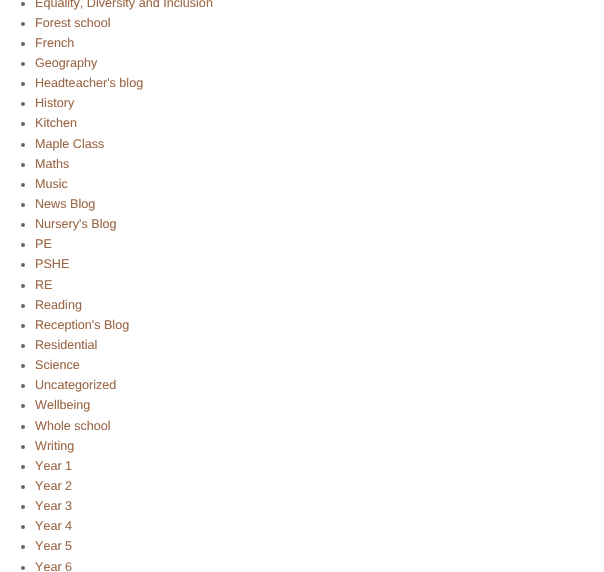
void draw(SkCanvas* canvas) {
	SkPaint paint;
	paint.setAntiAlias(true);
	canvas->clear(0xffffffff);
	paint.setColor(0xff666666);
	canvas->drawCircle(23, 4, 2, paint);
	SkFont f1(fontMgr->matchFamilyStyle("Liberation Sans", SkFontStyle::Normal()), 12.6);
	f1.setSubpixel(true);
	paint.setColor(0xff9b6745);
	canvas->drawString("Equality, Diversity and Inclusion", 35, 7, f1, paint);
	paint.setColor(0xff666666);
	canvas->drawCircle(23, 24, 2, paint);
	paint.setColor(0xff9b6745);
	canvas->drawString("Forest school", 35, 27, f1, paint);
	paint.setColor(0xff666666);
	canvas->drawCircle(23, 44, 2, paint);
	paint.setColor(0xff9b6745);
	canvas->drawString("French", 35, 47, f1, paint);
	paint.setColor(0xff666666);
	canvas->drawCircle(23, 64, 2, paint);
	paint.setColor(0xff9b6745);
	canvas->drawString("Geography", 35, 67, f1, paint);
	paint.setColor(0xff666666);
	canvas->drawCircle(23, 84, 2, paint);
	paint.setColor(0xff9b6745);
	canvas->drawString("Headteacher's blog", 35, 87, f1, paint);
	paint.setColor(0xff666666);
	canvas->drawCircle(23, 104, 2, paint);
	paint.setColor(0xff9b6745);
	canvas->drawString("History", 35, 107, f1, paint);
	paint.setColor(0xff666666);
	canvas->drawCircle(23, 124, 2, paint);
	paint.setColor(0xff9b6745);
	canvas->drawString("Kitchen", 35, 127, f1, paint);
	paint.setColor(0xff666666);
	canvas->drawCircle(23, 145, 2, paint);
	paint.setColor(0xff9b6745);
	canvas->drawString("Maple Class", 35, 148, f1, paint);
	paint.setColor(0xff666666);
	canvas->drawCircle(23, 165, 2, paint);
	paint.setColor(0xff9b6745);
	canvas->drawString("Maths", 35, 168, f1, paint);
	paint.setColor(0xff666666);
	canvas->drawCircle(23, 185, 2, paint);
	paint.setColor(0xff9b6745);
	canvas->drawString("Music", 35, 188, f1, paint);
	paint.setColor(0xff666666);
	canvas->drawCircle(23, 205, 2, paint);
	paint.setColor(0xff9b6745);
	canvas->drawString("News Blog", 35, 208, f1, paint);
	paint.setColor(0xff666666);
	canvas->drawCircle(23, 225, 2, paint);
	paint.setColor(0xff9b6745);
	canvas->drawString("Nursery's Blog", 35, 228, f1, paint);
	paint.setColor(0xff666666);
	canvas->drawCircle(23, 245, 2, paint);
	paint.setColor(0xff9b6745);
	canvas->drawString("PE", 35, 248, f1, paint);
	paint.setColor(0xff666666);
	canvas->drawCircle(23, 265, 2, paint);
	paint.setColor(0xff9b6745);
	canvas->drawString("PSHE", 35, 268, f1, paint);
	paint.setColor(0xff666666);
	canvas->drawCircle(23, 286, 2, paint);
	paint.setColor(0xff9b6745);
	canvas->drawString("RE", 35, 289, f1, paint);
	paint.setColor(0xff666666);
	canvas->drawCircle(23, 306, 2, paint);
	paint.setColor(0xff9b6745);
	canvas->drawString("Reading", 35, 309, f1, paint);
	paint.setColor(0xff666666);
	canvas->drawCircle(23, 326, 2, paint);
	paint.setColor(0xff9b6745);
	canvas->drawString("Reception's Blog", 35, 329, f1, paint);
	paint.setColor(0xff666666);
	canvas->drawCircle(23, 346, 2, paint);
	paint.setColor(0xff9b6745);
	canvas->drawString("Residential", 35, 349, f1, paint);
	paint.setColor(0xff666666);
	canvas->drawCircle(23, 366, 2, paint);
	paint.setColor(0xff9b6745);
	canvas->drawString("Science", 35, 369, f1, paint);
	paint.setColor(0xff666666);
	canvas->drawCircle(23, 386, 2, paint);
	paint.setColor(0xff9b6745);
	canvas->drawString("Uncategorized", 35, 389, f1, paint);
	paint.setColor(0xff666666);
	canvas->drawCircle(23, 406, 2, paint);
	paint.setColor(0xff9b6745);
	canvas->drawString("Wellbeing", 35, 409, f1, paint);
	paint.setColor(0xff666666);
	canvas->drawCircle(23, 427, 2, paint);
	paint.setColor(0xff9b6745);
	canvas->drawString("Whole school", 35, 430, f1, paint);
	paint.setColor(0xff666666);
	canvas->drawCircle(23, 447, 2, paint);
	paint.setColor(0xff9b6745);
	canvas->drawString("Writing", 35, 450, f1, paint);
	paint.setColor(0xff666666);
	canvas->drawCircle(23, 467, 2, paint);
	paint.setColor(0xff9b6745);
	canvas->drawString("Year 1", 35, 470, f1, paint);
	paint.setColor(0xff666666);
	canvas->drawCircle(23, 487, 2, paint);
	paint.setColor(0xff9b6745);
	canvas->drawString("Year 2", 35, 490, f1, paint);
	paint.setColor(0xff666666);
	canvas->drawCircle(23, 507, 2, paint);
	paint.setColor(0xff9b6745);
	canvas->drawString("Year 3", 35, 510, f1, paint);
	paint.setColor(0xff666666);
	canvas->drawCircle(23, 527, 2, paint);
	paint.setColor(0xff9b6745);
	canvas->drawString("Year 4", 35, 530, f1, paint);
	paint.setColor(0xff666666);
	canvas->drawCircle(23, 547, 2, paint);
	paint.setColor(0xff9b6745);
	canvas->drawString("Year 5", 35, 550, f1, paint);
	paint.setColor(0xff666666);
	canvas->drawCircle(23, 568, 2, paint);
	paint.setColor(0xff9b6745);
	canvas->drawString("Year 6", 35, 571, f1, paint);
}
